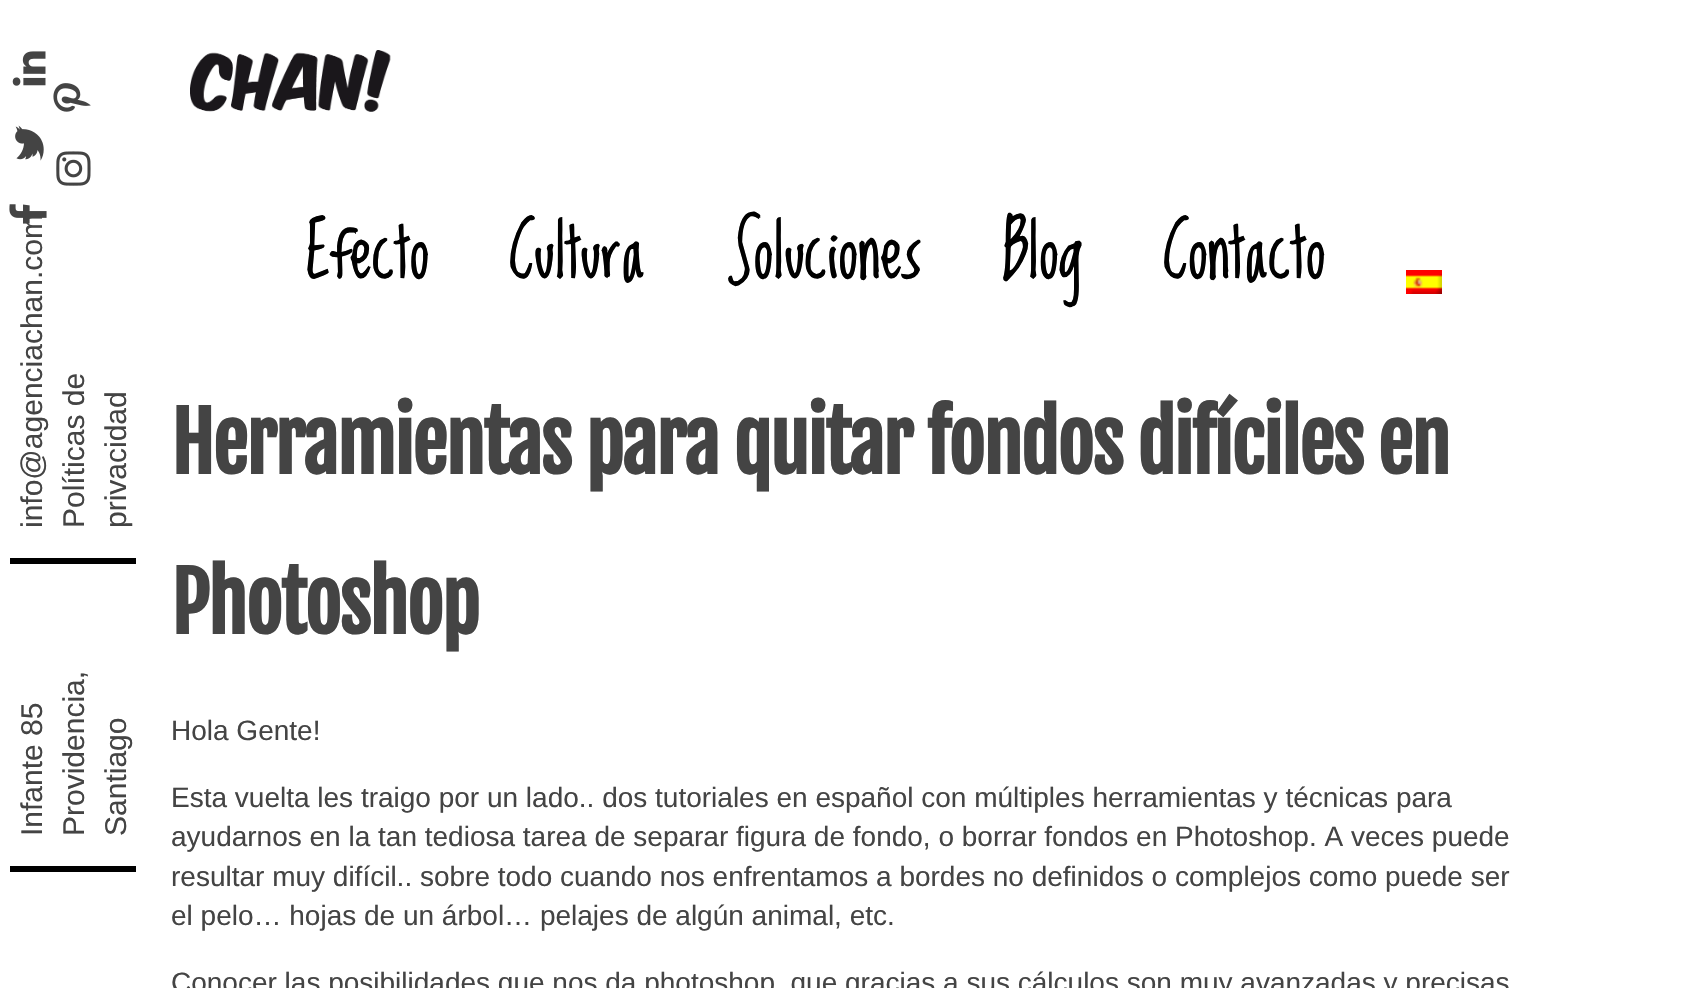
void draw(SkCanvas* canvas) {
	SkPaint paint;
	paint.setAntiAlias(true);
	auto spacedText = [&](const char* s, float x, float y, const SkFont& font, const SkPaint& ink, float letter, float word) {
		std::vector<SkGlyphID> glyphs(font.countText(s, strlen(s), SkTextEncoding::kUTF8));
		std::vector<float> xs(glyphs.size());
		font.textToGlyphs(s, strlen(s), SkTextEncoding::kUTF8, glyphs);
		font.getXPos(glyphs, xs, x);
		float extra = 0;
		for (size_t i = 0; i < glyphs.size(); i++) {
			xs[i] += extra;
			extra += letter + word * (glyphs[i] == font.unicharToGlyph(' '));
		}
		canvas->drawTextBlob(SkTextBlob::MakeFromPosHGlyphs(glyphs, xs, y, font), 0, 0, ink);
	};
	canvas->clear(0xffffffff);
	canvas->drawImageRect(SkImages::DeferredFromEncodedData(SkData::MakeFromFileName("img1.png")), SkRect::MakeXYWH(12, 51, 34, 35), SkSamplingOptions());
	canvas->drawImageRect(SkImages::DeferredFromEncodedData(SkData::MakeFromFileName("img2.png")), SkRect::MakeXYWH(15, 125, 29, 36), SkSamplingOptions());
	SkFont f1(fontMgr->matchFamilyStyle("Liberation Sans", SkFontStyle::Normal()), 30);
	f1.setSubpixel(true);
	paint.setColor(0xff444444);
	canvas->save();
	canvas->rotate(-90, 42, 528);
	canvas->drawString("info@agenciachan.com", 42, 528, f1, paint);
	canvas->restore();
	canvas->drawImageRect(SkImages::DeferredFromEncodedData(SkData::MakeFromFileName("img3.png")), SkRect::MakeXYWH(9, 204, 38, 20), SkSamplingOptions());
	canvas->drawImageRect(SkImages::DeferredFromEncodedData(SkData::MakeFromFileName("img4.png")), SkRect::MakeXYWH(53, 83, 38, 29), SkSamplingOptions());
	canvas->drawImageRect(SkImages::DeferredFromEncodedData(SkData::MakeFromFileName("img5.png")), SkRect::MakeXYWH(56, 151, 35, 35), SkSamplingOptions());
	paint.setColor(0xff000000);
	canvas->drawRect(SkRect::MakeXYWH(10, 558, 126, 6), paint);
	paint.setColor(0xff444444);
	canvas->save();
	canvas->rotate(-90, 84, 528);
	canvas->drawString("Políticas de", 84, 528, f1, paint);
	canvas->restore();
	canvas->save();
	canvas->rotate(-90, 126, 528);
	canvas->drawString("privacidad", 126, 528, f1, paint);
	canvas->restore();
	paint.setColor(0xff000000);
	canvas->drawRect(SkRect::MakeXYWH(10, 866, 126, 6), paint);
	paint.setColor(0xff444444);
	canvas->save();
	canvas->rotate(-90, 42, 836);
	canvas->drawString("Infante 85", 42, 836, f1, paint);
	canvas->restore();
	canvas->save();
	canvas->rotate(-90, 84, 836);
	canvas->drawString("Providencia,", 84, 836, f1, paint);
	canvas->restore();
	canvas->save();
	canvas->rotate(-90, 126, 836);
	canvas->drawString("Santiago", 126, 836, f1, paint);
	canvas->restore();
	canvas->drawImageRect(SkImages::DeferredFromEncodedData(SkData::MakeFromFileName("img6.png")), SkRect::MakeXYWH(190, 50, 201, 62), SkSamplingOptions());
	SkFont f2(fontMgr->matchFamilyStyle("Loved by the King", SkFontStyle::Bold()), 60);
	f2.setSubpixel(true);
	paint.setColor(0xff000000);
	spacedText("Efecto", 306, 278, f2, paint, 2, 0);
	spacedText("Cultura", 509, 278, f2, paint, 2, 0);
	spacedText("Soluciones", 726, 278, f2, paint, 2, 0);
	spacedText("Blog", 1002, 278, f2, paint, 2, 0);
	spacedText("Contacto", 1163, 278, f2, paint, 2, 0);
	canvas->drawImageRect(SkImages::DeferredFromEncodedData(SkData::MakeFromFileName("img7.png")), SkRect::MakeXYWH(1406, 270, 36, 24), SkSamplingOptions());
	SkFont f3(fontMgr->matchFamilyStyle("Fjalla One", SkFontStyle::Bold()), 80);
	f3.setSubpixel(true);
	paint.setColor(0xff444444);
	spacedText("Herramientas para quitar fondos difíciles en", 171, 474, f3, paint, -2, 0);
	spacedText("Photoshop", 171, 634, f3, paint, -2, 0);
	SkFont f4(fontMgr->matchFamilyStyle("Liberation Sans", SkFontStyle::Normal()), 28);
	f4.setSubpixel(true);
	canvas->drawString("Hola Gente!", 171, 740, f4, paint);
	canvas->drawString("Esta vuelta les traigo por un lado.. dos tutoriales en español con múltiples herramientas y técnicas para", 171, 807, f4, paint);
	canvas->drawString("ayudarnos en la tan tediosa tarea de separar figura de fondo, o borrar fondos en Photoshop. A veces puede", 171, 846, f4, paint);
	canvas->drawString("resultar muy difícil.. sobre todo cuando nos enfrentamos a bordes no definidos o complejos como puede ser", 171, 886, f4, paint);
	canvas->drawString("el pelo… hojas de un árbol… pelajes de algún animal, etc.", 171, 925, f4, paint);
	canvas->drawString("Conocer las posibilidades que nos da photoshop, que gracias a sus cálculos son muy avanzadas y precisas", 171, 992, f4, paint);
}
